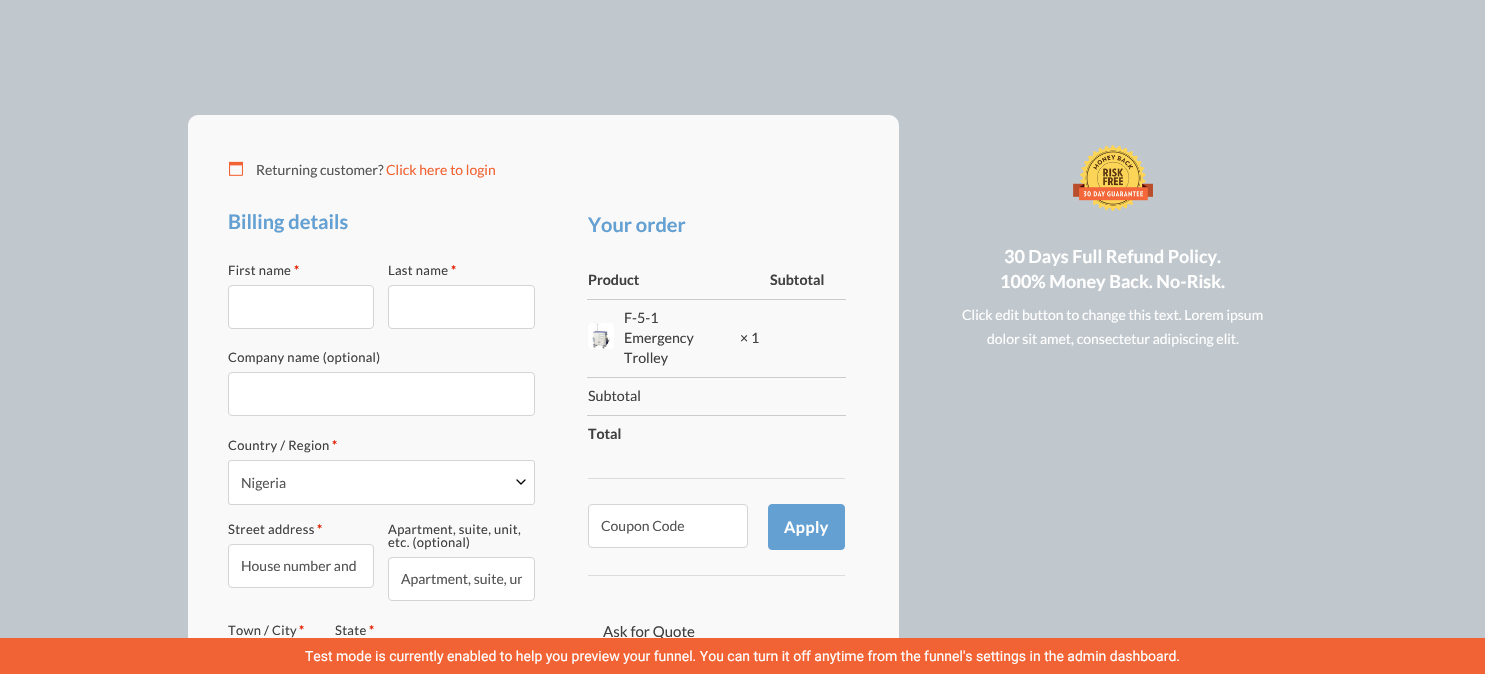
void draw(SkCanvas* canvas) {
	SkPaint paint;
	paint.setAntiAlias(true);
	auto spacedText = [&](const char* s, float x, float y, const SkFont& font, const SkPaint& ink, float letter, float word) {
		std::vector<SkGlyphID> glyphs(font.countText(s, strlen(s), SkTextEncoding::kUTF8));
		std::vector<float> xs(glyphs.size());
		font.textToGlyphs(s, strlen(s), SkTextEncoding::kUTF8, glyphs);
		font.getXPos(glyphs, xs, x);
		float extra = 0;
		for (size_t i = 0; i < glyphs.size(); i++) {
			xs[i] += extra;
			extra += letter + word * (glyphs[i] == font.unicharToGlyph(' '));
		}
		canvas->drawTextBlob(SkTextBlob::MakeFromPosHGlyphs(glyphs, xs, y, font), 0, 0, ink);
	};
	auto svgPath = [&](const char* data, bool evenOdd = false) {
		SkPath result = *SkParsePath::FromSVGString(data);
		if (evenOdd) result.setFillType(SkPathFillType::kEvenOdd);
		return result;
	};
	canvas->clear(0xffc0c7cd);
	paint.setColor(0xfff9f9f9);
	canvas->drawRoundRect(SkRect::MakeXYWH(188, 115, 711, 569), 10, 10, paint);
	canvas->drawImageRect(SkImages::DeferredFromEncodedData(SkData::MakeFromFileName("img1.png")), SkRect::MakeXYWH(229, 161, 14, 15), SkSamplingOptions());
	SkFont f1(fontMgr->matchFamilyStyle("Lato", SkFontStyle::Normal()), 14);
	f1.setSubpixel(true);
	paint.setColor(0xff555555);
	canvas->drawString("Returning customer?", 256, 175, f1, paint);
	paint.setColor(0xfff16334);
	canvas->drawString("Click here to login", 386, 175, f1, paint);
	SkFont f2(fontMgr->matchFamilyStyle("Lato", SkFontStyle::Bold()), 20);
	f2.setSubpixel(true);
	paint.setColor(0xff64a0d1);
	canvas->drawString("Billing details", 228, 229, f2, paint);
	SkFont f3(fontMgr->matchFamilyStyle("Lato", SkFontStyle::Normal()), 13);
	f3.setSubpixel(true);
	paint.setColor(0xff404040);
	spacedText("First name", 228, 275, f3, paint, 0.3, 0);
	SkFont f4(fontMgr->matchFamilyStyle("Lato", SkFontStyle::Bold()), 13);
	f4.setSubpixel(true);
	paint.setColor(0xffe11e00);
	spacedText("*", 294, 275, f4, paint, 0.3, 0);
	paint.setColor(0xffffffff);
	canvas->drawRoundRect(SkRect::MakeXYWH(228.5, 285.5, 145, 43), 3.5, 3.5, paint);
	paint.setStroke(true);
	paint.setStrokeWidth(1);
	paint.setColor(0xffd4d4d4);
	canvas->drawRoundRect(SkRect::MakeXYWH(228.5, 285.5, 145, 43), 3.5, 3.5, paint);
	paint.setStroke(false);
	paint.setColor(0xff404040);
	spacedText("Last name", 388, 275, f3, paint, 0.3, 0);
	paint.setColor(0xffe11e00);
	spacedText("*", 451, 275, f4, paint, 0.3, 0);
	paint.setColor(0xffffffff);
	canvas->drawRoundRect(SkRect::MakeXYWH(388.5, 285.5, 146, 43), 3.5, 3.5, paint);
	paint.setStroke(true);
	paint.setColor(0xffd4d4d4);
	canvas->drawRoundRect(SkRect::MakeXYWH(388.5, 285.5, 146, 43), 3.5, 3.5, paint);
	paint.setStroke(false);
	paint.setColor(0xff404040);
	spacedText("Company name (optional)", 228, 362, f3, paint, 0.3, 0);
	paint.setColor(0xffffffff);
	canvas->drawRoundRect(SkRect::MakeXYWH(228.5, 372.5, 306, 43), 3.5, 3.5, paint);
	paint.setStroke(true);
	paint.setColor(0xffd4d4d4);
	canvas->drawRoundRect(SkRect::MakeXYWH(228.5, 372.5, 306, 43), 3.5, 3.5, paint);
	paint.setStroke(false);
	paint.setColor(0xff404040);
	spacedText("Country / Region", 228, 450, f3, paint, 0.3, 0);
	paint.setColor(0xffe11e00);
	spacedText("*", 332, 450, f4, paint, 0.3, 0);
	paint.setColor(0xffffffff);
	canvas->drawRoundRect(SkRect::MakeXYWH(228.5, 460.5, 306, 44), 2.5, 2.5, paint);
	paint.setStroke(true);
	paint.setColor(0xffd4d4d4);
	canvas->drawRoundRect(SkRect::MakeXYWH(228.5, 460.5, 306, 44), 2.5, 2.5, paint);
	paint.setStroke(false);
	paint.setColor(0xff555555);
	canvas->drawString("Nigeria", 241, 488, f1, paint);
	paint.setStroke(true);
	paint.setStrokeWidth(1.3);
	paint.setStrokeCap(SkPaint::kRound_Cap);
	paint.setStrokeJoin(SkPaint::kRound_Join);
	paint.setColor(0xff000000);
	canvas->drawPath(svgPath("M517 480L521 484L525 480"), paint);
	paint.setStroke(false);
	paint.setColor(0xff404040);
	spacedText("Street address", 228, 534, f3, paint, 0.3, 0);
	paint.setColor(0xffe11e00);
	spacedText("*", 317, 534, f4, paint, 0.3, 0);
	paint.setColor(0xffffffff);
	canvas->drawRoundRect(SkRect::MakeXYWH(228.5, 544.5, 145, 43), 3.5, 3.5, paint);
	paint.setStroke(true);
	paint.setStrokeWidth(1);
	paint.setStrokeCap(SkPaint::kButt_Cap);
	paint.setStrokeJoin(SkPaint::kMiter_Join);
	paint.setColor(0xffd4d4d4);
	canvas->drawRoundRect(SkRect::MakeXYWH(228.5, 544.5, 145, 43), 3.5, 3.5, paint);
	paint.setStroke(false);
	paint.setColor(0xff555555);
	canvas->drawString("House number and", 241, 571, f1, paint);
	paint.setColor(0xff404040);
	spacedText("Apartment, suite, unit,", 388, 534, f3, paint, 0.3, 0);
	spacedText("etc. (optional)", 388, 547, f3, paint, 0.3, 0);
	paint.setColor(0xffffffff);
	canvas->drawRoundRect(SkRect::MakeXYWH(388.5, 557.5, 146, 43), 3.5, 3.5, paint);
	paint.setStroke(true);
	paint.setColor(0xffd4d4d4);
	canvas->drawRoundRect(SkRect::MakeXYWH(388.5, 557.5, 146, 43), 3.5, 3.5, paint);
	canvas->save();
	canvas->clipRect(SkRect::MakeXYWH(401, 570, 121, 17));
	paint.setStroke(false);
	paint.setColor(0xff555555);
	canvas->drawString("Apartment, suite, un", 401, 584, f1, paint);
	canvas->restore();
	paint.setColor(0xff404040);
	spacedText("Town / City", 228, 635, f3, paint, 0.3, 0);
	paint.setColor(0xffe11e00);
	spacedText("*", 299, 635, f4, paint, 0.3, 0);
	paint.setColor(0xff404040);
	spacedText("State", 335, 635, f3, paint, 0.3, 0);
	paint.setColor(0xffe11e00);
	spacedText("*", 369, 635, f4, paint, 0.3, 0);
	paint.setColor(0xff64a0d1);
	canvas->drawString("Your order", 588, 232, f2, paint);
	SkFont f5(fontMgr->matchFamilyStyle("Lato", SkFontStyle::Bold()), 14.25);
	f5.setSubpixel(true);
	paint.setColor(0xff404040);
	canvas->drawString("Product", 588, 285, f5, paint);
	canvas->drawString("Subtotal", 770, 285, f5, paint);
	paint.setColor(0xffcccccc);
	canvas->drawRect(SkRect::MakeXYWH(587, 299, 259, 1), paint);
	canvas->drawRect(SkRect::MakeXYWH(587, 377, 259, 1), paint);
	canvas->drawImageRect(SkImages::DeferredFromEncodedData(SkData::MakeFromFileName("img2.png")), SkRect::MakeXYWH(588, 323, 26, 26), SkSamplingOptions());
	SkFont f6(fontMgr->matchFamilyStyle("Lato", SkFontStyle::Normal()), 14.25);
	f6.setSubpixel(true);
	paint.setColor(0xff404040);
	canvas->drawString("F-5-1", 624, 323, f6, paint);
	canvas->drawString("Emergency", 624, 343, f6, paint);
	canvas->drawString("Trolley", 624, 363, f6, paint);
	canvas->drawString("× 1", 740, 343, f6, paint);
	canvas->drawString("Subtotal", 588, 401, f6, paint);
	paint.setColor(0xffcccccc);
	canvas->drawRect(SkRect::MakeXYWH(587, 415, 259, 1), paint);
	paint.setColor(0xff404040);
	canvas->drawString("Total", 588, 439, f5, paint);
	paint.setColor(0xffdcdcdc);
	canvas->drawRect(SkRect::MakeXYWH(588, 478, 257, 1), paint);
	canvas->drawRect(SkRect::MakeXYWH(588, 575, 257, 1), paint);
	paint.setColor(0xffffffff);
	canvas->drawRoundRect(SkRect::MakeXYWH(588.5, 504.5, 159, 43), 3.5, 3.5, paint);
	paint.setStroke(true);
	paint.setColor(0xffd4d4d4);
	canvas->drawRoundRect(SkRect::MakeXYWH(588.5, 504.5, 159, 43), 3.5, 3.5, paint);
	paint.setStroke(false);
	paint.setColor(0xff555555);
	canvas->drawString("Coupon Code", 601, 531, f1, paint);
	paint.setColor(0xff64a0d1);
	canvas->drawRoundRect(SkRect::MakeXYWH(768.5, 504.5, 76, 45), 3.5, 3.5, paint);
	paint.setStroke(true);
	canvas->drawRoundRect(SkRect::MakeXYWH(768.5, 504.5, 76, 45), 3.5, 3.5, paint);
	SkFont f7(fontMgr->matchFamilyStyle("Lato", SkFontStyle::Bold()), 16);
	f7.setSubpixel(true);
	paint.setStroke(false);
	paint.setColor(0xffffffff);
	spacedText("Apply", 784, 533, f7, paint, 0.5, 0);
	SkFont f8(fontMgr->matchFamilyStyle("Lato", SkFontStyle::Normal()), 15);
	f8.setSubpixel(true);
	paint.setColor(0xff404040);
	canvas->drawString("Ask for Quote", 603, 637, f8, paint);
	canvas->drawImageRect(SkImages::DeferredFromEncodedData(SkData::MakeFromFileName("img3.png")), SkRect::MakeXYWH(1073, 145, 80, 66), SkSamplingOptions());
	SkFont f9(fontMgr->matchFamilyStyle("Lato", SkFontStyle::Bold()), 18);
	f9.setSubpixel(true);
	paint.setColor(0xffffffff);
	canvas->drawString("30 Days Full Refund Policy.", 1004, 263, f9, paint);
	canvas->drawString("100% Money Back. No-Risk.", 1000, 288, f9, paint);
	canvas->drawString("Click edit button to change this text. Lorem ipsum", 962, 320, f1, paint);
	canvas->drawString("dolor sit amet, consectetur adipiscing elit.", 987, 344, f1, paint);
	paint.setColor(0xfff16334);
	canvas->drawRect(SkRect::MakeXYWH(0, 638, 1485, 36), paint);
	SkFont f10(fontMgr->matchFamilyStyle("Roboto", SkFontStyle::Normal()), 14);
	f10.setSubpixel(true);
	paint.setColor(0xffffffff);
	canvas->drawString("Test mode is currently enabled to help you preview your funnel. You can turn it off anytime from the funnel's settings in the admin dashboard.", 305, 661, f10, paint);
}
